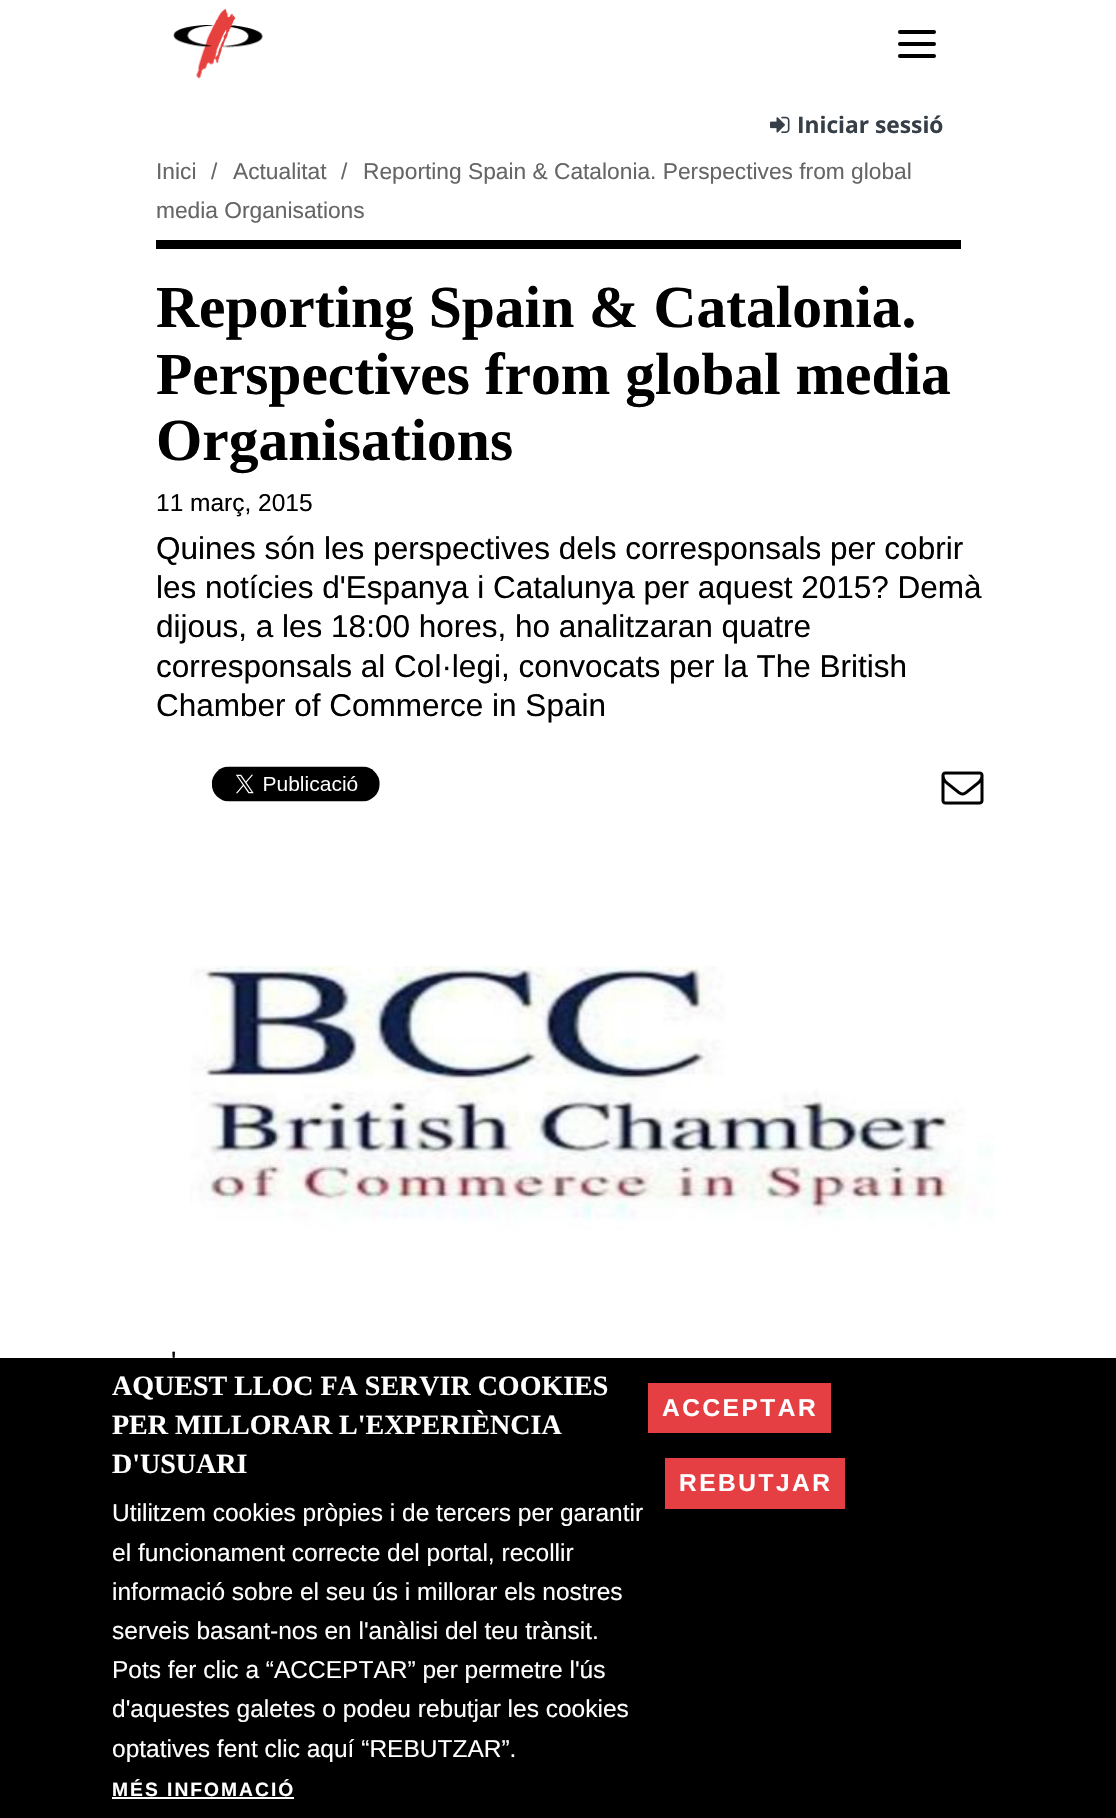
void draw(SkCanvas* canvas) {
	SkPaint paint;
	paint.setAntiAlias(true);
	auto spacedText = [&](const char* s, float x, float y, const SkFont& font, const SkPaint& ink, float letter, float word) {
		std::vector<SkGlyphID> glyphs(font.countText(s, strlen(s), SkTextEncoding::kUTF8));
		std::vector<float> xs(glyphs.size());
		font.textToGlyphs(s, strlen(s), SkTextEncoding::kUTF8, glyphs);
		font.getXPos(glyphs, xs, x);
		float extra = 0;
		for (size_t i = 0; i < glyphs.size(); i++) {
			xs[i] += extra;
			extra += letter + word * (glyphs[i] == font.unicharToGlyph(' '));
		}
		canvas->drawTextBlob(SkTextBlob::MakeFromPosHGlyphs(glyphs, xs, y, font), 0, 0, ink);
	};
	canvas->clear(0xffffffff);
	canvas->drawImageRect(SkImages::DeferredFromEncodedData(SkData::MakeFromFileName("img1.png")), SkRect::MakeXYWH(173, 8, 90, 71), SkSamplingOptions());
	paint.setColor(0xff000000);
	canvas->drawRoundRect(SkRect::MakeXYWH(898, 30, 38, 4), 2, 2, paint);
	canvas->drawRoundRect(SkRect::MakeXYWH(898, 42, 38, 4), 2, 2, paint);
	canvas->drawRoundRect(SkRect::MakeXYWH(898, 54, 38, 4), 2, 2, paint);
	canvas->drawImageRect(SkImages::DeferredFromEncodedData(SkData::MakeFromFileName("img2.png")), SkRect::MakeXYWH(770, 116, 20, 17), SkSamplingOptions());
	SkFont f1(fontMgr->matchFamilyStyle("Open Sans", SkFontStyle::Bold()), 22.75);
	f1.setSubpixel(true);
	paint.setColor(0xff363f48);
	canvas->drawString("Iniciar sessió", 797, 133, f1, paint);
	SkFont f2(fontMgr->matchFamilyStyle("Arimo", SkFontStyle::Normal()), 22.75);
	f2.setSubpixel(true);
	paint.setColor(0xff666666);
	canvas->drawString("Inici", 156, 179, f2, paint);
	canvas->drawString("/", 211, 179, f2, paint);
	canvas->drawString("Actualitat", 233, 179, f2, paint);
	canvas->drawString("/", 341, 179, f2, paint);
	canvas->drawString("Reporting Spain & Catalonia. Perspectives from global", 363, 179, f2, paint);
	canvas->drawString("media Organisations", 156, 218, f2, paint);
	paint.setColor(0xff000000);
	canvas->drawRect(SkRect::MakeXYWH(156, 240, 805, 9), paint);
	SkFont f3(fontMgr->matchFamilyStyle("Liberation Serif", SkFontStyle::Bold()), 59.5);
	f3.setSubpixel(true);
	canvas->drawString("Reporting Spain & Catalonia.", 156, 327, f3, paint);
	canvas->drawString("Perspectives from global media", 156, 394, f3, paint);
	canvas->drawString("Organisations", 156, 460, f3, paint);
	SkFont f4(fontMgr->matchFamilyStyle("Arimo", SkFontStyle::Normal()), 24.5);
	f4.setSubpixel(true);
	canvas->drawString("11 març, 2015", 156, 511, f4, paint);
	SkFont f5(fontMgr->matchFamilyStyle("Arimo", SkFontStyle::Normal()), 31.5);
	f5.setSubpixel(true);
	canvas->drawString("Quines són les perspectives dels corresponsals per cobrir", 156, 559, f5, paint);
	canvas->drawString("les notícies d'Espanya i Catalunya per aquest 2015? Demà", 156, 598, f5, paint);
	canvas->drawString("dijous, a les 18:00 hores, ho analitzaran quatre", 156, 637, f5, paint);
	canvas->drawString("corresponsals al Col·legi, convocats per la The British", 156, 677, f5, paint);
	canvas->drawString("Chamber of Commerce in Spain", 156, 716, f5, paint);
	canvas->drawImageRect(SkImages::DeferredFromEncodedData(SkData::MakeFromFileName("img3.png")), SkRect::MakeXYWH(211, 766, 169, 36), SkSamplingOptions());
	canvas->drawImageRect(SkImages::DeferredFromEncodedData(SkData::MakeFromFileName("img4.png")), SkRect::MakeXYWH(941, 771, 43, 34), SkSamplingOptions());
	canvas->drawImageRect(SkImages::DeferredFromEncodedData(SkData::MakeFromFileName("img5.png")), SkRect::MakeXYWH(190, 965, 805, 265), SkSamplingOptions());
	SkFont f6(fontMgr->matchFamilyStyle("Arimo", SkFontStyle::Normal()), 28);
	f6.setSubpixel(true);
	canvas->drawString("'", 171, 1371, f6, paint);
	canvas->drawRect(SkRect::MakeXYWH(0, 1358, 1116, 460), paint);
	SkFont f7(fontMgr->matchFamilyStyle("Liberation Serif", SkFontStyle::Bold()), 28);
	f7.setSubpixel(true);
	paint.setColor(0xffffffff);
	canvas->drawString("AQUEST LLOC FA SERVIR COOKIES", 112, 1395, f7, paint);
	canvas->drawString("PER MILLORAR L'EXPERIÈNCIA", 112, 1434, f7, paint);
	canvas->drawString("D'USUARI", 112, 1473, f7, paint);
	canvas->drawString("Utilitzem cookies pròpies i de tercers per garantir", 112, 1521, f4, paint);
	canvas->drawString("el funcionament correcte del portal, recollir", 112, 1561, f4, paint);
	canvas->drawString("informació sobre el seu ús i millorar els nostres", 112, 1600, f4, paint);
	canvas->drawString("serveis basant-nos en l'anàlisi del teu trànsit.", 112, 1639, f4, paint);
	canvas->drawString("Pots fer clic a “ACCEPTAR” per permetre l'ús", 112, 1678, f4, paint);
	canvas->drawString("d'aquestes galetes o podeu rebutjar les cookies", 112, 1717, f4, paint);
	canvas->drawString("optatives fent clic aquí “REBUTZAR”.", 112, 1757, f4, paint);
	SkFont f8(fontMgr->matchFamilyStyle("Arimo", SkFontStyle::Bold()), 19.25);
	f8.setSubpixel(true);
	spacedText("MÉS INFOMACIÓ", 112, 1796, f8, paint, 2, 0);
	canvas->drawRect(SkRect::MakeXYWH(112, 1797, 182, 2), paint);
	paint.setColor(0xffe53e43);
	canvas->drawRect(SkRect::MakeXYWH(648, 1383, 183, 50), paint);
	SkFont f9(fontMgr->matchFamilyStyle("Arimo", SkFontStyle::Bold()), 24.5);
	f9.setSubpixel(true);
	paint.setColor(0xffffffff);
	spacedText("ACCEPTAR", 662, 1416, f9, paint, 2.5, 0);
	paint.setColor(0xffe53e43);
	canvas->drawRect(SkRect::MakeXYWH(665, 1458, 180, 51), paint);
	SkFont f10(fontMgr->matchFamilyStyle("Liberation Sans", SkFontStyle::Bold()), 24.5);
	f10.setSubpixel(true);
	paint.setColor(0xffffffff);
	spacedText("REBUTJAR", 679, 1491, f10, paint, 2.5, 0);
}
